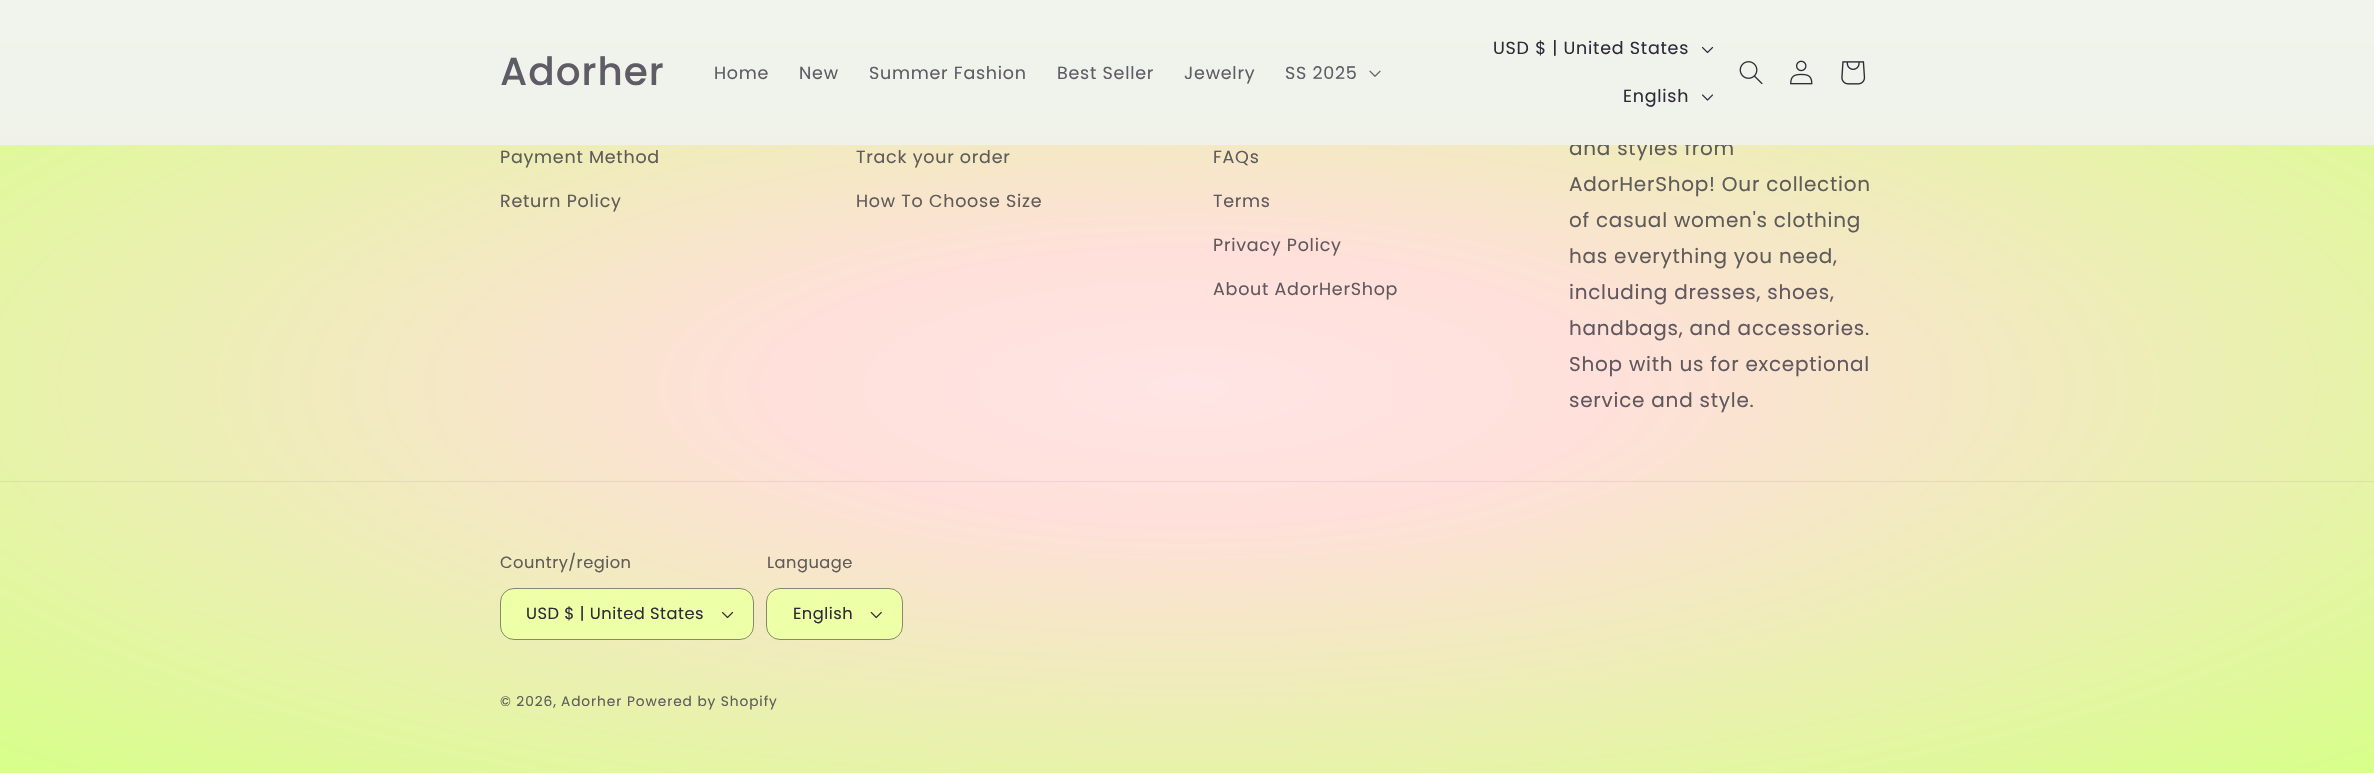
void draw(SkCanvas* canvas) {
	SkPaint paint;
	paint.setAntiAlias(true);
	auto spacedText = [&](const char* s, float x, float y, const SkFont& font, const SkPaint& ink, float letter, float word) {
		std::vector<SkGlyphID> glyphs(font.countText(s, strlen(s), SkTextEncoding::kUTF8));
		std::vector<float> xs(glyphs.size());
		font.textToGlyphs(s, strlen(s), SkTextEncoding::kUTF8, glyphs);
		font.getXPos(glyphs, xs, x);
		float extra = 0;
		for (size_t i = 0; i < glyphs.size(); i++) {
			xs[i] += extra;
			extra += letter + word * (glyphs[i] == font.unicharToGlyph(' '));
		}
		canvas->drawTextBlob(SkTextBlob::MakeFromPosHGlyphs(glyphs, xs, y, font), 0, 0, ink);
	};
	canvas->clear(0xffffffff);
	{
		const SkColor colors[] = {0xffffe5e5, 0xffffe0da, 0xffd7ff89};
		const float stops[] = {0, 0.25, 1};
		SkMatrix m = SkMatrix::Translate(1188, 387).preScale(1679, 547);
		paint.setShader(SkGradientShader::MakeRadial({0, 0}, 1, colors, stops, 3, SkTileMode::kClamp, 0, &m));
		paint.setAlpha(255);
	}
	canvas->drawRect(SkRect::MakeXYWH(0, 145, 2374, 628), paint);
	SkFont f1(fontMgr->matchFamilyStyle("Poppins", SkFontStyle::Normal()), 20);
	f1.setSubpixel(true);
	paint.setShader(nullptr);
	paint.setColor(0xff5e5b59);
	spacedText("and styles from", 1569, 155, f1, paint, 0.75, 0);
	{
		const SkColor colors[] = {0xfff0f4ec, 0xfff1ebe2};
		const float stops[] = {0, 1};
		const SkPoint ends[] = {{1188, 0}, {1188, 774}};
		paint.setShader(SkGradientShader::MakeLinear(ends, colors, stops, 2, SkTileMode::kClamp));
		paint.setAlpha(255);
	}
	canvas->drawRect(SkRect::MakeXYWH(0, 0, 2374, 145), paint);
	SkFont f2(fontMgr->matchFamilyStyle("Poppins", SkFontStyle(500, SkFontStyle::kNormal_Width, SkFontStyle::kUpright_Slant)), 39);
	f2.setSubpixel(true);
	paint.setShader(nullptr);
	paint.setColor(0xff5f5c66);
	spacedText("Adorher", 500, 85, f2, paint, 1, 0);
	SkFont f3(fontMgr->matchFamilyStyle("Poppins", SkFontStyle::Normal()), 17.5);
	f3.setSubpixel(true);
	spacedText("Home", 714, 79, f3, paint, 0.75, 0);
	spacedText("New", 799, 79, f3, paint, 0.75, 0);
	spacedText("Summer Fashion", 869, 79, f3, paint, 0.75, 0);
	spacedText("Best Seller", 1057, 79, f3, paint, 0.75, 0);
	spacedText("Jewelry", 1184, 79, f3, paint, 0.75, 0);
	spacedText("SS 2025", 1285, 79, f3, paint, 0.75, 0);
	canvas->drawImageRect(SkImages::DeferredFromEncodedData(SkData::MakeFromFileName("img1.png")), SkRect::MakeXYWH(1369, 70, 12, 7), SkSamplingOptions());
	paint.setColor(0xff2e2a39);
	spacedText("USD $ | United States", 1493, 54, f3, paint, 0.75, 0);
	canvas->drawImageRect(SkImages::DeferredFromEncodedData(SkData::MakeFromFileName("img2.png")), SkRect::MakeXYWH(1701, 46, 13, 8), SkSamplingOptions());
	spacedText("English", 1623, 102, f3, paint, 0.75, 0);
	canvas->drawImageRect(SkImages::DeferredFromEncodedData(SkData::MakeFromFileName("img3.png")), SkRect::MakeXYWH(1702, 94, 11, 7), SkSamplingOptions());
	canvas->drawImageRect(SkImages::DeferredFromEncodedData(SkData::MakeFromFileName("img4.png")), SkRect::MakeXYWH(1739, 61, 24, 24), SkSamplingOptions());
	canvas->drawImageRect(SkImages::DeferredFromEncodedData(SkData::MakeFromFileName("img5.png")), SkRect::MakeXYWH(1790, 60, 23, 25), SkSamplingOptions());
	canvas->drawImageRect(SkImages::DeferredFromEncodedData(SkData::MakeFromFileName("img6.png")), SkRect::MakeXYWH(1841, 61, 25, 24), SkSamplingOptions());
	{
		const SkColor colors[] = {0xffeed6d7, 0xffeed1cd, 0xffc9ee83};
		const float stops[] = {0, 0.25, 1};
		SkMatrix m = SkMatrix::Translate(1188, 387).preScale(1679, 547);
		paint.setShader(SkGradientShader::MakeRadial({0, 0}, 1, colors, stops, 3, SkTileMode::kClamp, 0, &m));
		paint.setAlpha(255);
	}
	canvas->drawRect(SkRect::MakeXYWH(0, 481, 2374, 1), paint);
	paint.setShader(nullptr);
	paint.setColor(0xff5e5b59);
	spacedText("Payment Method", 500, 163, f3, paint, 0.75, 0);
	spacedText("Return Policy", 500, 207, f3, paint, 0.75, 0);
	spacedText("Track your order", 856, 163, f3, paint, 0.75, 0);
	spacedText("How To Choose Size", 856, 207, f3, paint, 0.75, 0);
	spacedText("FAQs", 1213, 163, f3, paint, 0.75, 0);
	paint.setColor(0xff61585f);
	spacedText("Terms", 1213, 207, f3, paint, 0.75, 0);
	spacedText("Privacy Policy", 1213, 251, f3, paint, 0.75, 0);
	spacedText("About AdorHerShop", 1213, 295, f3, paint, 0.75, 0);
	paint.setColor(0xff5e5b59);
	spacedText("AdorHerShop! Our collection", 1569, 191, f1, paint, 0.75, 0);
	spacedText("of casual women's clothing", 1569, 227, f1, paint, 0.75, 0);
	spacedText("has everything you need,", 1569, 263, f1, paint, 0.75, 0);
	paint.setColor(0xff61585f);
	spacedText("including dresses, shoes,", 1569, 299, f1, paint, 0.75, 0);
	spacedText("handbags, and accessories.", 1569, 335, f1, paint, 0.75, 0);
	spacedText("Shop with us for exceptional", 1569, 371, f1, paint, 0.75, 0);
	spacedText("service and style.", 1569, 407, f1, paint, 0.75, 0);
	SkFont f4(fontMgr->matchFamilyStyle("Poppins", SkFontStyle::Normal()), 16.25);
	f4.setSubpixel(true);
	paint.setColor(0xff5e5b59);
	spacedText("Country/region", 500, 568, f4, paint, 0.5, 0);
	paint.setColor(0xffedffa7);
	canvas->drawRoundRect(SkRect::MakeXYWH(500, 588, 254, 52), 14, 14, paint);
	canvas->drawImageRect(SkImages::DeferredFromEncodedData(SkData::MakeFromFileName("img7.png")), SkRect::MakeXYWH(721, 611, 13, 8), SkSamplingOptions());
	paint.setStroke(true);
	paint.setStrokeWidth(1);
	paint.setColor(0x8c2e2a39);
	canvas->drawRoundRect(SkRect::MakeXYWH(500.5, 588.5, 253, 51), 13.5, 13.5, paint);
	paint.setStroke(false);
	paint.setColor(0xff2e2a39);
	spacedText("USD $ | United States", 526, 619, f4, paint, 0.5, 0);
	paint.setColor(0xff5e5b59);
	spacedText("Language", 767, 568, f4, paint, 0.5, 0);
	paint.setColor(0xffedffa7);
	canvas->drawRoundRect(SkRect::MakeXYWH(766, 588, 137, 52), 14, 14, paint);
	canvas->drawImageRect(SkImages::DeferredFromEncodedData(SkData::MakeFromFileName("img8.png")), SkRect::MakeXYWH(870, 611, 12, 8), SkSamplingOptions());
	paint.setStroke(true);
	paint.setColor(0x8c2e2a39);
	canvas->drawRoundRect(SkRect::MakeXYWH(766.5, 588.5, 136, 51), 13.5, 13.5, paint);
	paint.setStroke(false);
	paint.setColor(0xff2e2a39);
	spacedText("English", 793, 619, f4, paint, 0.5, 0);
	SkFont f5(fontMgr->matchFamilyStyle("Poppins", SkFontStyle::Normal()), 13.75);
	f5.setSubpixel(true);
	paint.setColor(0xff5e5b59);
	spacedText("© 2026,", 500, 706, f5, paint, 0.9, 0);
	spacedText("Adorher", 561, 706, f5, paint, 0.9, 0);
	spacedText("Powered by Shopify", 627, 706, f5, paint, 0.9, 0);
}
